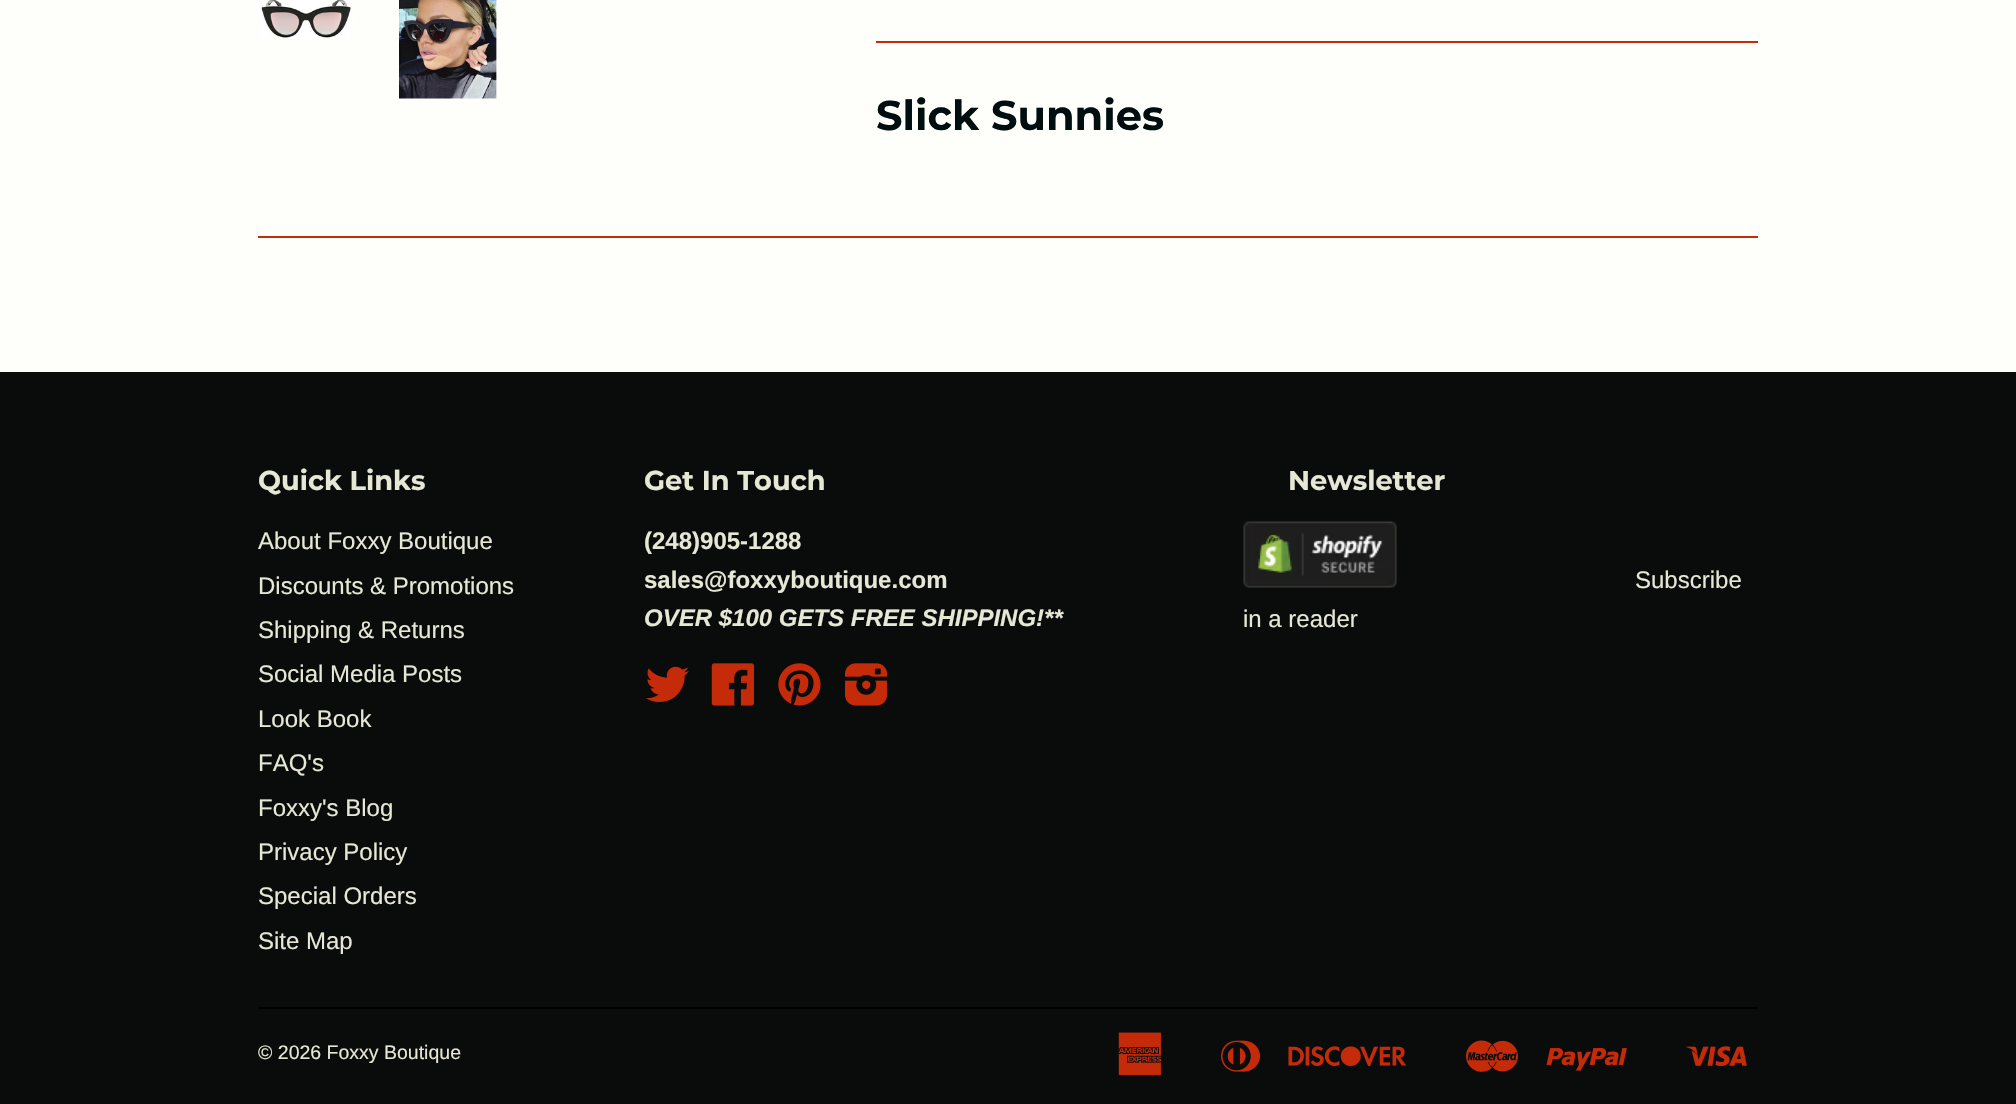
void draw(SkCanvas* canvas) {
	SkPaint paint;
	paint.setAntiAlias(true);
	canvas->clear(0xfffefefa);
	canvas->drawImageRect(SkImages::DeferredFromEncodedData(SkData::MakeFromFileName("img1.png")), SkRect::MakeXYWH(258, 0, 96, 39), SkSamplingOptions());
	canvas->drawImageRect(SkImages::DeferredFromEncodedData(SkData::MakeFromFileName("img2.png")), SkRect::MakeXYWH(399, 0, 98, 99), SkSamplingOptions());
	paint.setColor(0xffc52b09);
	canvas->drawRect(SkRect::MakeXYWH(876, 41, 882, 2), paint);
	SkFont f1(fontMgr->matchFamilyStyle("Montserrat", SkFontStyle(100, SkFontStyle::kNormal_Width, SkFontStyle::kUpright_Slant)), 41.5);
	f1.setSubpixel(true);
	paint.setColor(0xff010e0f);
	canvas->drawString("Slick Sunnies", 876, 130, f1, paint);
	paint.setColor(0xffc52b09);
	canvas->drawRect(SkRect::MakeXYWH(258, 236, 1500, 2), paint);
	paint.setColor(0xff0a0b0b);
	canvas->drawRect(SkRect::MakeXYWH(0, 372, 2016, 732), paint);
	SkFont f2(fontMgr->matchFamilyStyle("Montserrat", SkFontStyle(100, SkFontStyle::kNormal_Width, SkFontStyle::kUpright_Slant)), 27.25);
	f2.setSubpixel(true);
	paint.setColor(0xffe6e7d5);
	canvas->drawString("Quick Links", 258, 490, f2, paint);
	SkFont f3(fontMgr->matchFamilyStyle("Liberation Sans", SkFontStyle::Normal()), 24);
	f3.setSubpixel(true);
	canvas->drawString("About Foxxy Boutique", 258, 549, f3, paint);
	canvas->drawString("Discounts & Promotions", 258, 594, f3, paint);
	canvas->drawString("Shipping & Returns", 258, 638, f3, paint);
	canvas->drawString("Social Media Posts", 258, 682, f3, paint);
	canvas->drawString("Look Book", 258, 727, f3, paint);
	canvas->drawString("FAQ's", 258, 771, f3, paint);
	canvas->drawString("Foxxy's Blog", 258, 816, f3, paint);
	canvas->drawString("Privacy Policy", 258, 860, f3, paint);
	canvas->drawString("Special Orders", 258, 904, f3, paint);
	canvas->drawString("Site Map", 258, 949, f3, paint);
	canvas->drawString("Get In Touch", 644, 490, f2, paint);
	SkFont f4(fontMgr->matchFamilyStyle("Liberation Sans", SkFontStyle::Bold()), 24);
	f4.setSubpixel(true);
	canvas->drawString("(248)905-1288", 644, 549, f4, paint);
	canvas->drawString("sales@foxxyboutique.com", 644, 588, f4, paint);
	SkFont f5(fontMgr->matchFamilyStyle("Liberation Sans", SkFontStyle::BoldItalic()), 24);
	f5.setSubpixel(true);
	canvas->drawString("OVER $100 GETS FREE SHIPPING!**", 644, 626, f5, paint);
	canvas->drawImageRect(SkImages::DeferredFromEncodedData(SkData::MakeFromFileName("img3.png")), SkRect::MakeXYWH(646, 666, 43, 36), SkSamplingOptions());
	canvas->drawImageRect(SkImages::DeferredFromEncodedData(SkData::MakeFromFileName("img4.png")), SkRect::MakeXYWH(711, 663, 43, 43), SkSamplingOptions());
	canvas->drawImageRect(SkImages::DeferredFromEncodedData(SkData::MakeFromFileName("img5.png")), SkRect::MakeXYWH(778, 663, 43, 43), SkSamplingOptions());
	canvas->drawImageRect(SkImages::DeferredFromEncodedData(SkData::MakeFromFileName("img6.png")), SkRect::MakeXYWH(845, 663, 43, 43), SkSamplingOptions());
	canvas->drawString("Newsletter", 1288, 490, f2, paint);
	canvas->drawImageRect(SkImages::DeferredFromEncodedData(SkData::MakeFromFileName("img7.png")), SkRect::MakeXYWH(1243, 521, 154, 67), SkSamplingOptions());
	canvas->drawString("Subscribe", 1635, 588, f3, paint);
	canvas->drawString("in a reader", 1243, 627, f3, paint);
	paint.setColor(0xff000000);
	canvas->drawRect(SkRect::MakeXYWH(258, 1007, 1500, 2), paint);
	SkFont f6(fontMgr->matchFamilyStyle("Liberation Sans", SkFontStyle::Normal()), 19.5);
	f6.setSubpixel(true);
	paint.setColor(0xffe6e7d5);
	canvas->drawString("© 2026 Foxxy Boutique", 258, 1059, f6, paint);
	canvas->drawImageRect(SkImages::DeferredFromEncodedData(SkData::MakeFromFileName("img8.png")), SkRect::MakeXYWH(1118, 1032, 44, 43), SkSamplingOptions());
	canvas->drawImageRect(SkImages::DeferredFromEncodedData(SkData::MakeFromFileName("img9.png")), SkRect::MakeXYWH(1221, 1040, 39, 32), SkSamplingOptions());
	canvas->drawImageRect(SkImages::DeferredFromEncodedData(SkData::MakeFromFileName("img10.png")), SkRect::MakeXYWH(1288, 1046, 119, 20), SkSamplingOptions());
	canvas->drawImageRect(SkImages::DeferredFromEncodedData(SkData::MakeFromFileName("img11.png")), SkRect::MakeXYWH(1466, 1040, 52, 32), SkSamplingOptions());
	canvas->drawImageRect(SkImages::DeferredFromEncodedData(SkData::MakeFromFileName("img12.png")), SkRect::MakeXYWH(1546, 1048, 81, 23), SkSamplingOptions());
	canvas->drawImageRect(SkImages::DeferredFromEncodedData(SkData::MakeFromFileName("img13.png")), SkRect::MakeXYWH(1686, 1046, 61, 20), SkSamplingOptions());
}
